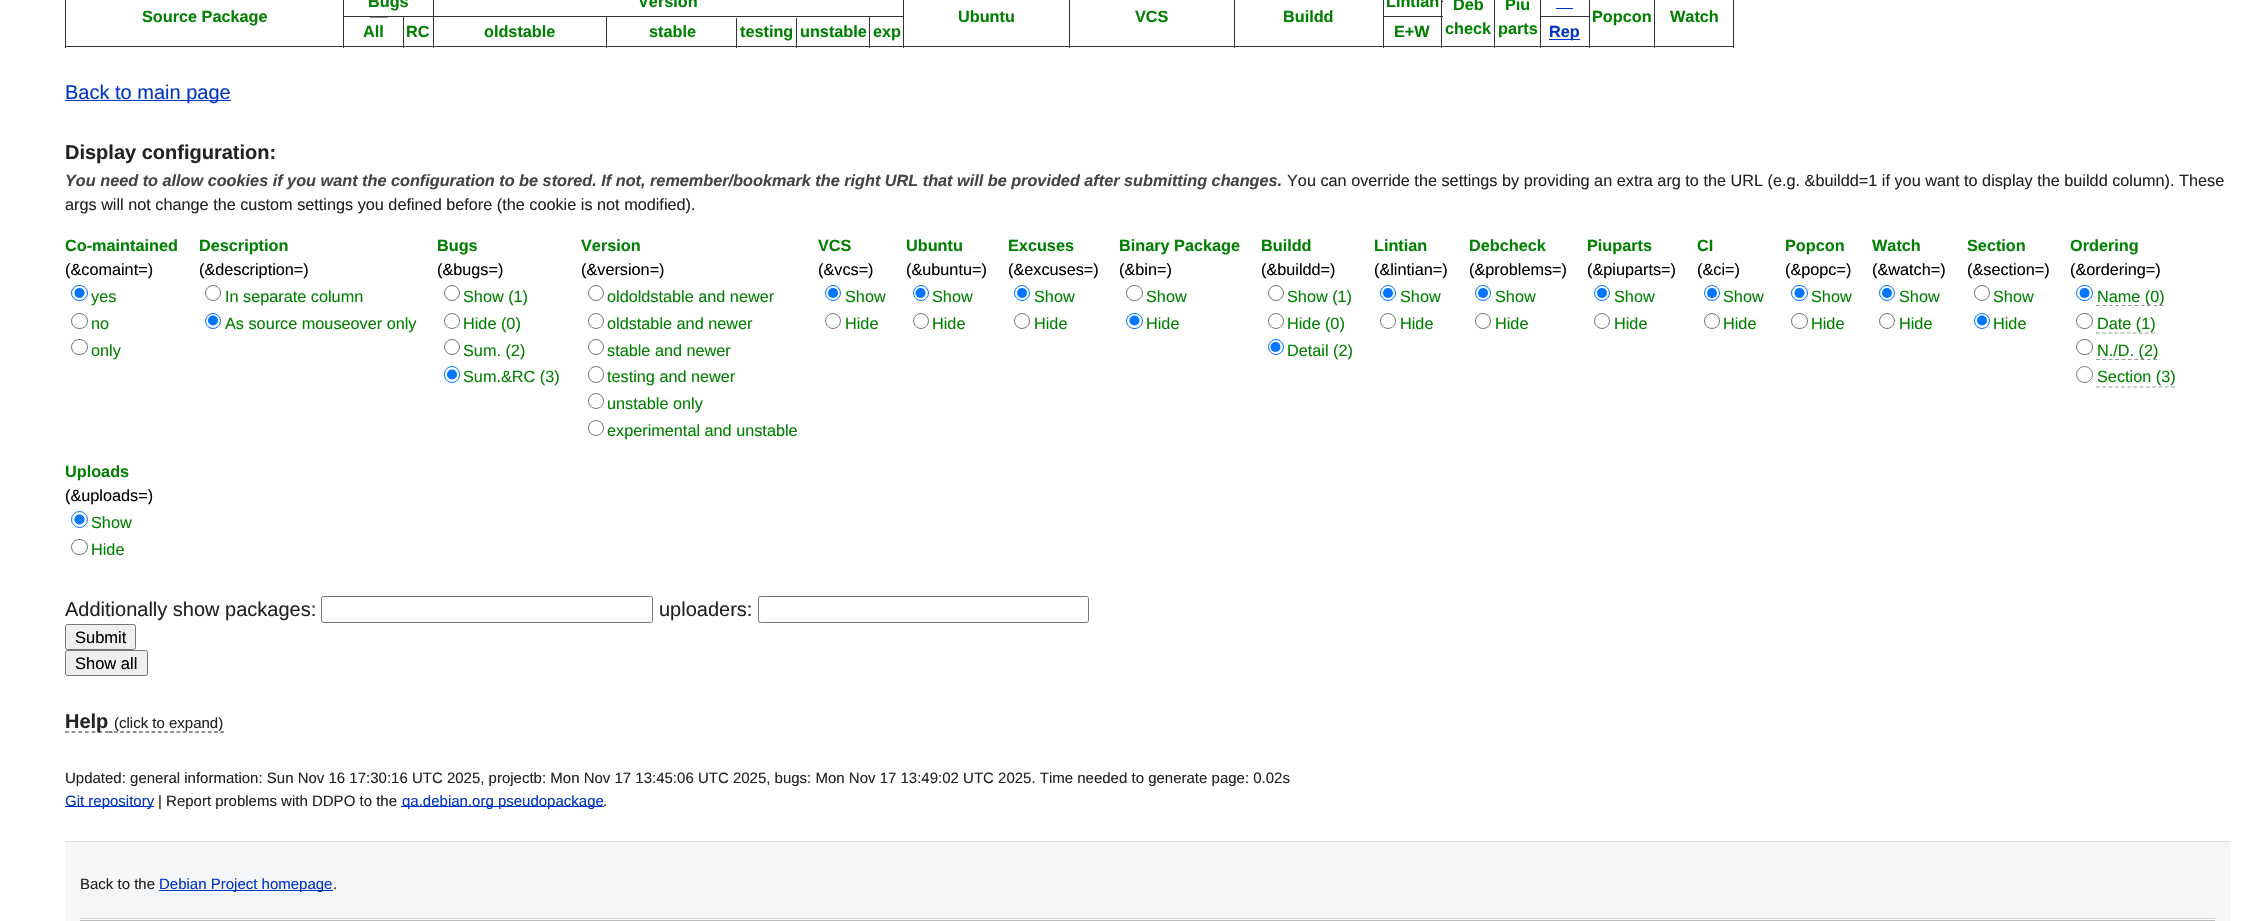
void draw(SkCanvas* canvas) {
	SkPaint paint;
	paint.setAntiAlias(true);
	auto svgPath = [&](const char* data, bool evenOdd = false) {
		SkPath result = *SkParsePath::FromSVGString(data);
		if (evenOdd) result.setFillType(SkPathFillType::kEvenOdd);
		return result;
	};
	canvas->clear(0xffffffff);
	paint.setColor(0xff333333);
	canvas->drawRect(SkRect::MakeXYWH(65, 0, 1, 48), paint);
	paint.setColor(0xffdcdcdc);
	canvas->drawRect(SkRect::MakeXYWH(1442, 0, 1, 3), paint);
	paint.setColor(0xff333333);
	canvas->drawRect(SkRect::MakeXYWH(343, 0, 1, 48), paint);
	canvas->drawRect(SkRect::MakeXYWH(433, 0, 1, 48), paint);
	canvas->drawRect(SkRect::MakeXYWH(903, 0, 1, 48), paint);
	canvas->drawRect(SkRect::MakeXYWH(1069, 0, 1, 48), paint);
	canvas->drawRect(SkRect::MakeXYWH(1234, 0, 1, 48), paint);
	canvas->drawRect(SkRect::MakeXYWH(1383, 0, 1, 48), paint);
	canvas->drawRect(SkRect::MakeXYWH(1441, 0, 1, 48), paint);
	canvas->drawRect(SkRect::MakeXYWH(1441, 1, 2, 1), paint);
	canvas->drawRect(SkRect::MakeXYWH(1494, 0, 1, 48), paint);
	canvas->drawRect(SkRect::MakeXYWH(1540, 0, 1, 48), paint);
	canvas->drawRect(SkRect::MakeXYWH(1589, 0, 1, 48), paint);
	canvas->drawRect(SkRect::MakeXYWH(1654, 0, 1, 48), paint);
	canvas->drawRect(SkRect::MakeXYWH(1733, 0, 1, 48), paint);
	canvas->drawRect(SkRect::MakeXYWH(66, 46, 5, 1), paint);
	canvas->drawRect(SkRect::MakeXYWH(71, 46, 273, 1), paint);
	canvas->drawRect(SkRect::MakeXYWH(403, 17, 1, 31), paint);
	canvas->drawRect(SkRect::MakeXYWH(344, 46, 90, 1), paint);
	canvas->drawImageRect(SkImages::DeferredFromEncodedData(SkData::MakeFromFileName("img1.png")), SkRect::MakeXYWH(369, 17, 20, 1), SkSamplingOptions());
	canvas->drawRect(SkRect::MakeXYWH(606, 17, 1, 31), paint);
	canvas->drawRect(SkRect::MakeXYWH(434, 46, 174, 1), paint);
	canvas->drawRect(SkRect::MakeXYWH(869, 17, 1, 31), paint);
	canvas->drawRect(SkRect::MakeXYWH(608, 46, 1126, 1), paint);
	SkFont f1(fontMgr->matchFamilyStyle("Liberation Sans", SkFontStyle::Bold()), 16.25);
	f1.setSubpixel(true);
	paint.setColor(0xff008000);
	canvas->drawString("Source Package", 142, 22, f1, paint);
	paint.setColor(0xff333333);
	canvas->drawRect(SkRect::MakeXYWH(344, 16, 560, 1), paint);
	paint.setColor(0xff008000);
	canvas->drawString("Bugs", 368, 7, f1, paint);
	canvas->drawString("Version", 638, 7, f1, paint);
	canvas->drawString("Ubuntu", 958, 22, f1, paint);
	canvas->drawString("VCS", 1135, 22, f1, paint);
	canvas->drawString("Buildd", 1283, 22, f1, paint);
	paint.setColor(0xff333333);
	canvas->drawRect(SkRect::MakeXYWH(1384, 16, 59, 1), paint);
	paint.setColor(0xff008000);
	canvas->drawString("Lintian", 1386, 7, f1, paint);
	canvas->drawString("Deb", 1453, 10, f1, paint);
	canvas->drawString("check", 1445, 34, f1, paint);
	canvas->drawString("Piu", 1505, 10, f1, paint);
	canvas->drawString("parts", 1498, 34, f1, paint);
	paint.setColor(0xff333333);
	canvas->drawRect(SkRect::MakeXYWH(1541, 16, 49, 1), paint);
	paint.setColor(0xff0035c7);
	canvas->drawRect(SkRect::MakeXYWH(1556, 8, 17, 1), paint);
	paint.setColor(0xff008000);
	canvas->drawString("Popcon", 1592, 22, f1, paint);
	canvas->drawString("Watch", 1670, 22, f1, paint);
	canvas->drawString("All", 363, 37, f1, paint);
	canvas->drawString("RC", 406, 37, f1, paint);
	canvas->drawString("oldstable", 484, 37, f1, paint);
	paint.setColor(0xff333333);
	canvas->drawRect(SkRect::MakeXYWH(736, 18, 1, 30), paint);
	paint.setColor(0xff008000);
	canvas->drawString("stable", 649, 37, f1, paint);
	paint.setColor(0xff333333);
	canvas->drawRect(SkRect::MakeXYWH(796, 18, 1, 30), paint);
	paint.setColor(0xff008000);
	canvas->drawString("testing", 740, 37, f1, paint);
	canvas->drawString("unstable", 800, 37, f1, paint);
	canvas->drawString("exp", 873, 37, f1, paint);
	canvas->drawString("E+W", 1394, 37, f1, paint);
	paint.setColor(0xff0035c7);
	canvas->drawRect(SkRect::MakeXYWH(1549, 39, 31, 1), paint);
	canvas->drawString("Rep", 1549, 37, f1, paint);
	canvas->drawRect(SkRect::MakeXYWH(65, 100, 166, 1), paint);
	SkFont f2(fontMgr->matchFamilyStyle("Liberation Sans", SkFontStyle::Normal()), 20);
	f2.setSubpixel(true);
	canvas->drawString("Back to main page", 65, 99, f2, paint);
	SkFont f3(fontMgr->matchFamilyStyle("Liberation Sans", SkFontStyle::Bold()), 20);
	f3.setSubpixel(true);
	paint.setColor(0xff222222);
	canvas->drawString("Display configuration:", 65, 159, f3, paint);
	SkFont f4(fontMgr->matchFamilyStyle("Liberation Sans", SkFontStyle::BoldItalic()), 16.25);
	f4.setSubpixel(true);
	paint.setColor(0xff444444);
	canvas->drawString("You need to allow cookies if you want the configuration to be stored. If not, remember/bookmark the right URL that will be provided after submitting changes.", 65, 186, f4, paint);
	SkFont f5(fontMgr->matchFamilyStyle("Liberation Sans", SkFontStyle::Normal()), 16.25);
	f5.setSubpixel(true);
	paint.setColor(0xff222222);
	canvas->drawString("You can override the settings by providing an extra arg to the URL (e.g. &buildd=1 if you want to display the buildd column). These", 1287, 186, f5, paint);
	canvas->drawString("args will not change the custom settings you defined before (the cookie is not modified).", 65, 210, f5, paint);
	paint.setColor(0xff008000);
	canvas->drawString("Co-maintained", 65, 251, f1, paint);
	paint.setColor(0xff000000);
	canvas->drawString("(&comaint=)", 65, 275, f5, paint);
	paint.setStroke(true);
	paint.setStrokeWidth(1);
	paint.setColor(0xff0075ff);
	canvas->drawRoundRect(SkRect::MakeXYWH(71.5, 285.5, 16, 15), 7.5, 7.5, paint);
	paint.setStroke(false);
	canvas->drawCircle(79.5, 293, 5, paint);
	paint.setColor(0xff008000);
	canvas->drawString("yes", 91, 302, f5, paint);
	paint.setStroke(true);
	paint.setColor(0xff767676);
	canvas->drawRoundRect(SkRect::MakeXYWH(71.5, 313.5, 16, 15), 7.5, 7.5, paint);
	paint.setStroke(false);
	paint.setColor(0xff008000);
	canvas->drawString("no", 91, 329, f5, paint);
	paint.setStroke(true);
	paint.setColor(0xff767676);
	canvas->drawRoundRect(SkRect::MakeXYWH(71.5, 339.5, 16, 15), 7.5, 7.5, paint);
	paint.setStroke(false);
	paint.setColor(0xff008000);
	canvas->drawString("only", 91, 356, f5, paint);
	canvas->drawString("Description", 199, 251, f1, paint);
	paint.setColor(0xff000000);
	canvas->drawString("(&description=)", 199, 275, f5, paint);
	paint.setStroke(true);
	paint.setColor(0xff767676);
	canvas->drawCircle(213, 293, 7.5, paint);
	paint.setStroke(false);
	paint.setColor(0xff008000);
	canvas->drawString("In separate column", 225, 302, f5, paint);
	paint.setStroke(true);
	paint.setColor(0xff0075ff);
	canvas->drawCircle(213, 321, 7.5, paint);
	paint.setStroke(false);
	canvas->drawCircle(213, 320.5, 5, paint);
	paint.setColor(0xff008000);
	canvas->drawString("As source mouseover only", 225, 329, f5, paint);
	canvas->drawString("Bugs", 437, 251, f1, paint);
	paint.setColor(0xff000000);
	canvas->drawString("(&bugs=)", 437, 275, f5, paint);
	paint.setStroke(true);
	paint.setColor(0xff767676);
	canvas->drawCircle(452, 293, 7.5, paint);
	paint.setStroke(false);
	paint.setColor(0xff008000);
	canvas->drawString("Show (1)", 463, 302, f5, paint);
	paint.setStroke(true);
	paint.setColor(0xff767676);
	canvas->drawCircle(452, 321, 7.5, paint);
	paint.setStroke(false);
	paint.setColor(0xff008000);
	canvas->drawString("Hide (0)", 463, 329, f5, paint);
	paint.setStroke(true);
	paint.setColor(0xff767676);
	canvas->drawCircle(452, 347, 7.5, paint);
	paint.setStroke(false);
	paint.setColor(0xff008000);
	canvas->drawString("Sum. (2)", 463, 356, f5, paint);
	paint.setStroke(true);
	paint.setColor(0xff0075ff);
	canvas->drawRoundRect(SkRect::MakeXYWH(444.5, 366.5, 15, 16), 7.5, 7.5, paint);
	paint.setStroke(false);
	canvas->drawCircle(452, 374.5, 5, paint);
	paint.setColor(0xff008000);
	canvas->drawString("Sum.&RC (3)", 463, 382, f5, paint);
	canvas->drawString("Version", 581, 251, f1, paint);
	paint.setColor(0xff000000);
	canvas->drawString("(&version=)", 581, 275, f5, paint);
	paint.setStroke(true);
	paint.setColor(0xff767676);
	canvas->drawCircle(596, 293, 7.5, paint);
	paint.setStroke(false);
	paint.setColor(0xff008000);
	canvas->drawString("oldoldstable and newer", 607, 302, f5, paint);
	paint.setStroke(true);
	paint.setColor(0xff767676);
	canvas->drawCircle(596, 321, 7.5, paint);
	paint.setStroke(false);
	paint.setColor(0xff008000);
	canvas->drawString("oldstable and newer", 607, 329, f5, paint);
	paint.setStroke(true);
	paint.setColor(0xff767676);
	canvas->drawCircle(596, 347, 7.5, paint);
	paint.setStroke(false);
	paint.setColor(0xff008000);
	canvas->drawString("stable and newer", 607, 356, f5, paint);
	paint.setStroke(true);
	paint.setColor(0xff767676);
	canvas->drawRoundRect(SkRect::MakeXYWH(588.5, 366.5, 15, 16), 7.5, 7.5, paint);
	paint.setStroke(false);
	paint.setColor(0xff008000);
	canvas->drawString("testing and newer", 607, 382, f5, paint);
	paint.setStroke(true);
	paint.setColor(0xff767676);
	canvas->drawCircle(596, 401, 7.5, paint);
	paint.setStroke(false);
	paint.setColor(0xff008000);
	canvas->drawString("unstable only", 607, 409, f5, paint);
	paint.setStroke(true);
	paint.setColor(0xff767676);
	canvas->drawCircle(596, 428, 7.5, paint);
	paint.setStroke(false);
	paint.setColor(0xff008000);
	canvas->drawString("experimental and unstable", 607, 436, f5, paint);
	canvas->drawString("VCS", 818, 251, f1, paint);
	paint.setColor(0xff000000);
	canvas->drawString("(&vcs=)", 818, 275, f5, paint);
	paint.setStroke(true);
	paint.setColor(0xff0075ff);
	canvas->drawCircle(833, 293, 7.5, paint);
	paint.setStroke(false);
	canvas->drawCircle(833, 293, 5, paint);
	paint.setColor(0xff008000);
	canvas->drawString("Show", 845, 302, f5, paint);
	paint.setStroke(true);
	paint.setColor(0xff767676);
	canvas->drawCircle(833, 321, 7.5, paint);
	paint.setStroke(false);
	paint.setColor(0xff008000);
	canvas->drawString("Hide", 845, 329, f5, paint);
	canvas->drawString("Ubuntu", 906, 251, f1, paint);
	paint.setColor(0xff000000);
	canvas->drawString("(&ubuntu=)", 906, 275, f5, paint);
	paint.setStroke(true);
	paint.setColor(0xff0075ff);
	canvas->drawCircle(921, 293, 7.5, paint);
	paint.setStroke(false);
	canvas->drawCircle(920.5, 293, 5, paint);
	paint.setColor(0xff008000);
	canvas->drawString("Show", 932, 302, f5, paint);
	paint.setStroke(true);
	paint.setColor(0xff767676);
	canvas->drawCircle(921, 321, 7.5, paint);
	paint.setStroke(false);
	paint.setColor(0xff008000);
	canvas->drawString("Hide", 932, 329, f5, paint);
	canvas->drawString("Excuses", 1008, 251, f1, paint);
	paint.setColor(0xff000000);
	canvas->drawString("(&excuses=)", 1008, 275, f5, paint);
	paint.setStroke(true);
	paint.setColor(0xff0075ff);
	canvas->drawCircle(1022, 293, 7.5, paint);
	paint.setStroke(false);
	canvas->drawCircle(1022, 293, 5, paint);
	paint.setColor(0xff008000);
	canvas->drawString("Show", 1034, 302, f5, paint);
	paint.setStroke(true);
	paint.setColor(0xff767676);
	canvas->drawCircle(1022, 321, 7.5, paint);
	paint.setStroke(false);
	paint.setColor(0xff008000);
	canvas->drawString("Hide", 1034, 329, f5, paint);
	canvas->drawString("Binary Package", 1119, 251, f1, paint);
	paint.setColor(0xff000000);
	canvas->drawString("(&bin=)", 1119, 275, f5, paint);
	paint.setStroke(true);
	paint.setColor(0xff767676);
	canvas->drawRoundRect(SkRect::MakeXYWH(1126.5, 285.5, 16, 15), 7.5, 7.5, paint);
	paint.setStroke(false);
	paint.setColor(0xff008000);
	canvas->drawString("Show", 1146, 302, f5, paint);
	paint.setStroke(true);
	paint.setColor(0xff0075ff);
	canvas->drawRoundRect(SkRect::MakeXYWH(1126.5, 313.5, 16, 15), 7.5, 7.5, paint);
	paint.setStroke(false);
	canvas->drawCircle(1134.5, 320.5, 5, paint);
	paint.setColor(0xff008000);
	canvas->drawString("Hide", 1146, 329, f5, paint);
	canvas->drawString("Buildd", 1261, 251, f1, paint);
	paint.setColor(0xff000000);
	canvas->drawString("(&buildd=)", 1261, 275, f5, paint);
	paint.setStroke(true);
	paint.setColor(0xff767676);
	canvas->drawCircle(1276, 293, 7.5, paint);
	paint.setStroke(false);
	paint.setColor(0xff008000);
	canvas->drawString("Show (1)", 1287, 302, f5, paint);
	paint.setStroke(true);
	paint.setColor(0xff767676);
	canvas->drawCircle(1276, 321, 7.5, paint);
	paint.setStroke(false);
	paint.setColor(0xff008000);
	canvas->drawString("Hide (0)", 1287, 329, f5, paint);
	paint.setStroke(true);
	paint.setColor(0xff0075ff);
	canvas->drawCircle(1276, 347, 7.5, paint);
	paint.setStroke(false);
	canvas->drawCircle(1275.5, 347, 5, paint);
	paint.setColor(0xff008000);
	canvas->drawString("Detail (2)", 1287, 356, f5, paint);
	canvas->drawString("Lintian", 1374, 251, f1, paint);
	paint.setColor(0xff000000);
	canvas->drawString("(&lintian=)", 1374, 275, f5, paint);
	paint.setStroke(true);
	paint.setColor(0xff0075ff);
	canvas->drawCircle(1388, 293, 7.5, paint);
	paint.setStroke(false);
	canvas->drawCircle(1388, 293, 5, paint);
	paint.setColor(0xff008000);
	canvas->drawString("Show", 1400, 302, f5, paint);
	paint.setStroke(true);
	paint.setColor(0xff767676);
	canvas->drawCircle(1388, 321, 7.5, paint);
	paint.setStroke(false);
	paint.setColor(0xff008000);
	canvas->drawString("Hide", 1400, 329, f5, paint);
	canvas->drawString("Debcheck", 1469, 251, f1, paint);
	paint.setColor(0xff000000);
	canvas->drawString("(&problems=)", 1469, 275, f5, paint);
	paint.setStroke(true);
	paint.setColor(0xff0075ff);
	canvas->drawCircle(1483, 293, 7.5, paint);
	paint.setStroke(false);
	canvas->drawCircle(1483, 293, 5, paint);
	paint.setColor(0xff008000);
	canvas->drawString("Show", 1495, 302, f5, paint);
	paint.setStroke(true);
	paint.setColor(0xff767676);
	canvas->drawCircle(1483, 321, 7.5, paint);
	paint.setStroke(false);
	paint.setColor(0xff008000);
	canvas->drawString("Hide", 1495, 329, f5, paint);
	canvas->drawString("Piuparts", 1587, 251, f1, paint);
	paint.setColor(0xff000000);
	canvas->drawString("(&piuparts=)", 1587, 275, f5, paint);
	paint.setStroke(true);
	paint.setColor(0xff0075ff);
	canvas->drawCircle(1602, 293, 7.5, paint);
	paint.setStroke(false);
	canvas->drawCircle(1602, 293, 5, paint);
	paint.setColor(0xff008000);
	canvas->drawString("Show", 1614, 302, f5, paint);
	paint.setStroke(true);
	paint.setColor(0xff767676);
	canvas->drawCircle(1602, 321, 7.5, paint);
	paint.setStroke(false);
	paint.setColor(0xff008000);
	canvas->drawString("Hide", 1614, 329, f5, paint);
	canvas->drawString("CI", 1697, 251, f1, paint);
	paint.setColor(0xff000000);
	canvas->drawString("(&ci=)", 1697, 275, f5, paint);
	paint.setStroke(true);
	paint.setColor(0xff0075ff);
	canvas->drawCircle(1712, 293, 7.5, paint);
	paint.setStroke(false);
	canvas->drawCircle(1712, 293, 5, paint);
	paint.setColor(0xff008000);
	canvas->drawString("Show", 1723, 302, f5, paint);
	paint.setStroke(true);
	paint.setColor(0xff767676);
	canvas->drawCircle(1712, 321, 7.5, paint);
	paint.setStroke(false);
	paint.setColor(0xff008000);
	canvas->drawString("Hide", 1723, 329, f5, paint);
	canvas->drawString("Popcon", 1785, 251, f1, paint);
	paint.setColor(0xff000000);
	canvas->drawString("(&popc=)", 1785, 275, f5, paint);
	paint.setStroke(true);
	paint.setColor(0xff0075ff);
	canvas->drawRoundRect(SkRect::MakeXYWH(1791.5, 285.5, 16, 15), 7.5, 7.5, paint);
	paint.setStroke(false);
	canvas->drawCircle(1799.5, 293, 5, paint);
	paint.setColor(0xff008000);
	canvas->drawString("Show", 1811, 302, f5, paint);
	paint.setStroke(true);
	paint.setColor(0xff767676);
	canvas->drawRoundRect(SkRect::MakeXYWH(1791.5, 313.5, 16, 15), 7.5, 7.5, paint);
	paint.setStroke(false);
	paint.setColor(0xff008000);
	canvas->drawString("Hide", 1811, 329, f5, paint);
	canvas->drawString("Watch", 1872, 251, f1, paint);
	paint.setColor(0xff000000);
	canvas->drawString("(&watch=)", 1872, 275, f5, paint);
	paint.setStroke(true);
	paint.setColor(0xff0075ff);
	canvas->drawCircle(1887, 293, 7.5, paint);
	paint.setStroke(false);
	canvas->drawCircle(1887, 293, 5, paint);
	paint.setColor(0xff008000);
	canvas->drawString("Show", 1899, 302, f5, paint);
	paint.setStroke(true);
	paint.setColor(0xff767676);
	canvas->drawCircle(1887, 321, 7.5, paint);
	paint.setStroke(false);
	paint.setColor(0xff008000);
	canvas->drawString("Hide", 1899, 329, f5, paint);
	canvas->drawString("Section", 1967, 251, f1, paint);
	paint.setColor(0xff000000);
	canvas->drawString("(&section=)", 1967, 275, f5, paint);
	paint.setStroke(true);
	paint.setColor(0xff767676);
	canvas->drawCircle(1982, 293, 7.5, paint);
	paint.setStroke(false);
	paint.setColor(0xff008000);
	canvas->drawString("Show", 1993, 302, f5, paint);
	paint.setStroke(true);
	paint.setColor(0xff0075ff);
	canvas->drawCircle(1982, 321, 7.5, paint);
	paint.setStroke(false);
	canvas->drawCircle(1982, 320.5, 5, paint);
	paint.setColor(0xff008000);
	canvas->drawString("Hide", 1993, 329, f5, paint);
	canvas->drawString("Ordering", 2070, 251, f1, paint);
	paint.setColor(0xff000000);
	canvas->drawString("(&ordering=)", 2070, 275, f5, paint);
	paint.setStroke(true);
	paint.setColor(0xff0075ff);
	canvas->drawRoundRect(SkRect::MakeXYWH(2076.5, 285.5, 16, 15), 7.5, 7.5, paint);
	paint.setStroke(false);
	canvas->drawCircle(2084.5, 293, 5, paint);
	paint.setStroke(true);
	paint.setStrokeWidth(1.2);
	paint.setColor(0xff999999);
	paint.setPathEffect(SkDashPathEffect::Make({{3.75f, 2.62f}}, 0));
	canvas->drawPath(svgPath("M2096 305.5H2164"), paint);
	paint.setPathEffect(nullptr);
	paint.setStroke(false);
	paint.setColor(0xff008000);
	canvas->drawString("Name (0)", 2097, 302, f5, paint);
	paint.setStroke(true);
	paint.setStrokeWidth(1);
	paint.setColor(0xff767676);
	canvas->drawRoundRect(SkRect::MakeXYWH(2076.5, 313.5, 16, 15), 7.5, 7.5, paint);
	paint.setStrokeWidth(1.2);
	paint.setColor(0xff999999);
	paint.setPathEffect(SkDashPathEffect::Make({{3.75f, 2.36f}}, 0));
	canvas->drawPath(svgPath("M2096 333H2155"), paint);
	paint.setPathEffect(nullptr);
	paint.setStroke(false);
	paint.setColor(0xff008000);
	canvas->drawString("Date (1)", 2097, 329, f5, paint);
	paint.setStroke(true);
	paint.setStrokeWidth(1);
	paint.setColor(0xff767676);
	canvas->drawRoundRect(SkRect::MakeXYWH(2076.5, 339.5, 16, 15), 7.5, 7.5, paint);
	paint.setStrokeWidth(1.2);
	paint.setColor(0xff999999);
	paint.setPathEffect(SkDashPathEffect::Make({{3.75f, 2.64f}}, 0));
	canvas->drawPath(svgPath("M2096 359.5H2157.5"), paint);
	paint.setPathEffect(nullptr);
	paint.setStroke(false);
	paint.setColor(0xff008000);
	canvas->drawString("N./D. (2)", 2097, 356, f5, paint);
	paint.setStroke(true);
	paint.setStrokeWidth(1);
	paint.setColor(0xff767676);
	canvas->drawCircle(2084.5, 374.5, 8, paint);
	paint.setStroke(false);
	paint.setColor(0xff008000);
	canvas->drawString("Section (3)", 2097, 382, f5, paint);
	paint.setStroke(true);
	paint.setStrokeWidth(1.2);
	paint.setColor(0xff999999);
	paint.setPathEffect(SkDashPathEffect::Make({{3.75f, 2.5f}}, 0));
	canvas->drawPath(svgPath("M2096 387H2175"), paint);
	paint.setPathEffect(nullptr);
	paint.setStroke(false);
	paint.setColor(0xff008000);
	canvas->drawString("Uploads", 65, 477, f1, paint);
	paint.setColor(0xff000000);
	canvas->drawString("(&uploads=)", 65, 501, f5, paint);
	paint.setStroke(true);
	paint.setStrokeWidth(1);
	paint.setColor(0xff0075ff);
	canvas->drawCircle(79.5, 519.5, 8, paint);
	paint.setStroke(false);
	canvas->drawCircle(79.5, 519.5, 5, paint);
	paint.setColor(0xff008000);
	canvas->drawString("Show", 91, 528, f5, paint);
	paint.setStroke(true);
	paint.setColor(0xff767676);
	canvas->drawRoundRect(SkRect::MakeXYWH(71.5, 539.5, 16, 15), 7.5, 7.5, paint);
	paint.setStroke(false);
	paint.setColor(0xff008000);
	canvas->drawString("Hide", 91, 555, f5, paint);
	paint.setColor(0xff222222);
	canvas->drawString("Additionally show packages:", 65, 616, f2, paint);
	paint.setStroke(true);
	paint.setColor(0xff767676);
	canvas->drawRoundRect(SkRect::MakeXYWH(321.5, 596.5, 331, 26), 2, 2, paint);
	paint.setStroke(false);
	paint.setColor(0xff222222);
	canvas->drawString("uploaders:", 659, 616, f2, paint);
	paint.setStroke(true);
	paint.setColor(0xff767676);
	canvas->drawRoundRect(SkRect::MakeXYWH(758.5, 596.5, 330, 26), 2, 2, paint);
	paint.setStroke(false);
	paint.setColor(0xffefefef);
	canvas->drawRoundRect(SkRect::MakeXYWH(65.5, 624.5, 70, 25), 2, 2, paint);
	paint.setStroke(true);
	paint.setColor(0xff767676);
	canvas->drawRoundRect(SkRect::MakeXYWH(65.5, 624.5, 70, 25), 2, 2, paint);
	SkFont f6(fontMgr->matchFamilyStyle("Liberation Sans", SkFontStyle::Normal()), 16.5);
	f6.setSubpixel(true);
	paint.setStroke(false);
	paint.setColor(0xff000000);
	canvas->drawString("Submit", 75, 643, f6, paint);
	paint.setColor(0xffefefef);
	canvas->drawRoundRect(SkRect::MakeXYWH(65.5, 650.5, 82, 25), 2, 2, paint);
	paint.setStroke(true);
	paint.setColor(0xff767676);
	canvas->drawRoundRect(SkRect::MakeXYWH(65.5, 650.5, 82, 25), 2, 2, paint);
	paint.setStroke(false);
	paint.setColor(0xff000000);
	canvas->drawString("Show all", 75, 669, f6, paint);
	paint.setStroke(true);
	paint.setStrokeWidth(1.2);
	paint.setColor(0xff222222);
	paint.setPathEffect(SkDashPathEffect::Make({{3.75f, 2.91f}}, 0));
	canvas->drawPath(svgPath("M65 732H109"), paint);
	paint.setPathEffect(nullptr);
	paint.setStroke(false);
	canvas->drawString("Help", 65, 728, f3, paint);
	paint.setStroke(true);
	paint.setPathEffect(SkDashPathEffect::Make({{3.75f, 2.5f}}, 0));
	canvas->drawPath(svgPath("M114 732H224"), paint);
	paint.setPathEffect(nullptr);
	SkFont f7(fontMgr->matchFamilyStyle("Liberation Sans", SkFontStyle::Normal()), 15);
	f7.setSubpixel(true);
	paint.setStroke(false);
	canvas->drawString("(click to expand)", 114, 728, f7, paint);
	paint.setStroke(true);
	canvas->drawPath(svgPath("M109 732H112.5"), paint);
	paint.setStroke(false);
	canvas->drawString("Updated: general information: Sun Nov 16 17:30:16 UTC 2025, projectb: Mon Nov 17 13:45:06 UTC 2025, bugs: Mon Nov 17 13:49:02 UTC 2025. Time needed to generate page: 0.02s", 65, 783, f7, paint);
	paint.setColor(0xff0035c7);
	canvas->drawRect(SkRect::MakeXYWH(65, 806, 89, 1), paint);
	canvas->drawString("Git repository", 65, 806, f7, paint);
	paint.setColor(0xff222222);
	canvas->drawString("| Report problems with DDPO to the", 158, 806, f7, paint);
	paint.setColor(0xff0035c7);
	canvas->drawRect(SkRect::MakeXYWH(401, 806, 203, 1), paint);
	canvas->drawString("qa.debian.org pseudopackage", 402, 806, f7, paint);
	paint.setColor(0xff222222);
	canvas->drawString(".", 603, 806, f7, paint);
	paint.setColor(0xfff5f6f7);
	canvas->drawRect(SkRect::MakeXYWH(65, 842, 2165, 79), paint);
	paint.setColor(0xffdfdfe0);
	canvas->drawRect(SkRect::MakeXYWH(65, 841, 2165, 1), paint);
	paint.setColor(0xff222222);
	canvas->drawString("Back to the", 80, 889, f7, paint);
	paint.setColor(0xff0035c7);
	canvas->drawRect(SkRect::MakeXYWH(159, 890, 174, 1), paint);
	canvas->drawString("Debian Project homepage", 159, 889, f7, paint);
	paint.setColor(0xff222222);
	canvas->drawString(".", 333, 889, f7, paint);
	paint.setColor(0xffbbbbbb);
	canvas->drawRect(SkRect::MakeXYWH(80, 920, 2135, 1), paint);
	paint.setColor(0xffd2d3d7);
	canvas->drawRect(SkRect::MakeXYWH(80, 918, 2135, 1), paint);
	paint.setColor(0xffffffff);
	canvas->drawRect(SkRect::MakeXYWH(80, 919, 2135, 1), paint);
}
